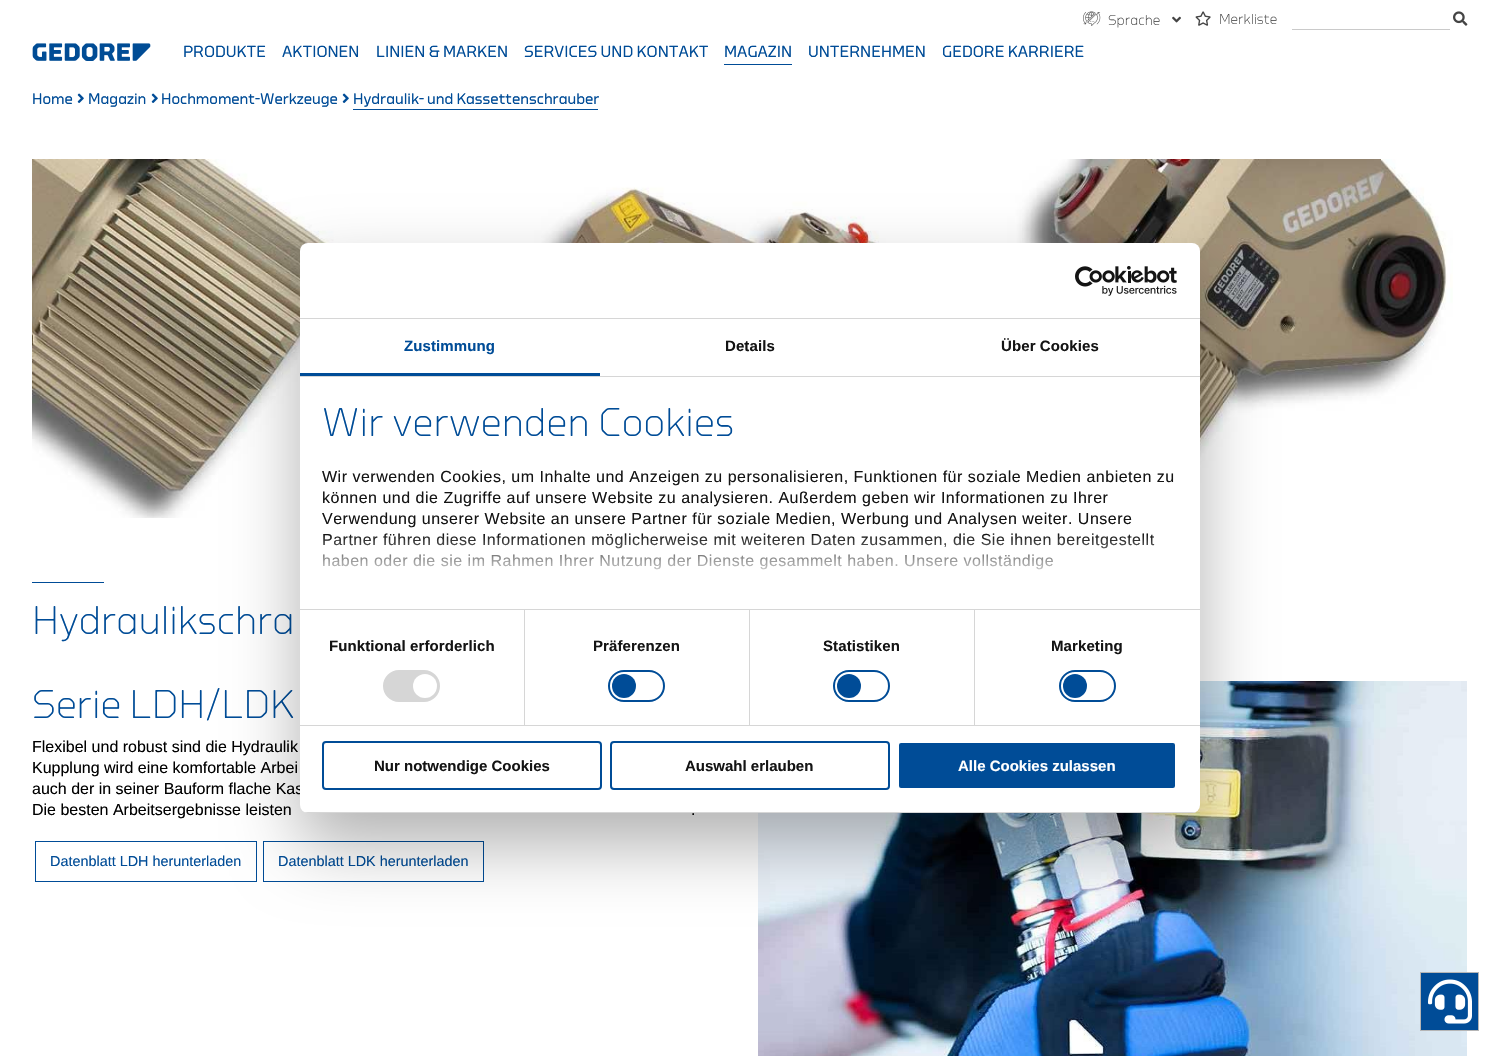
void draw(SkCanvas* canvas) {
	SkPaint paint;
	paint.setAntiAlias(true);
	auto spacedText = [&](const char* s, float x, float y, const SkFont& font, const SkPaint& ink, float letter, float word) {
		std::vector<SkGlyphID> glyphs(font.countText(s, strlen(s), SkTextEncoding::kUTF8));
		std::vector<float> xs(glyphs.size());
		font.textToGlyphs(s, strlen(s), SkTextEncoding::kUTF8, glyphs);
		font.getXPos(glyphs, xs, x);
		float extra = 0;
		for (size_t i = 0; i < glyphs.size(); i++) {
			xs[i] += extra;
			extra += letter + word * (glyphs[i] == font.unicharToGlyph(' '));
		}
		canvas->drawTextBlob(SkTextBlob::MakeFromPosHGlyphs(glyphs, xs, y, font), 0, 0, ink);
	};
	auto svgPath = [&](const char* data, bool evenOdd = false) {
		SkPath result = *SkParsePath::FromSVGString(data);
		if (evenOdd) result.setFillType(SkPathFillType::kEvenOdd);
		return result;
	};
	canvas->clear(0xffffffff);
	canvas->drawImageRect(SkImages::DeferredFromEncodedData(SkData::MakeFromFileName("img1.png")), SkRect::MakeXYWH(1083, 11, 18, 15), SkSamplingOptions());
	SkFont f1(fontMgr->matchFamilyStyle("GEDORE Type", SkFontStyle(300, SkFontStyle::kNormal_Width, SkFontStyle::kUpright_Slant)), 14.4);
	f1.setSubpixel(true);
	paint.setColor(0xff444444);
	canvas->drawString("Sprache", 1108, 25, f1, paint);
	canvas->drawImageRect(SkImages::DeferredFromEncodedData(SkData::MakeFromFileName("img2.png")), SkRect::MakeXYWH(1172, 16, 9, 7), SkSamplingOptions());
	canvas->drawImageRect(SkImages::DeferredFromEncodedData(SkData::MakeFromFileName("img3.png")), SkRect::MakeXYWH(1195, 11, 16, 15), SkSamplingOptions());
	canvas->drawString("Merkliste", 1219, 24, f1, paint);
	canvas->drawImageRect(SkImages::DeferredFromEncodedData(SkData::MakeFromFileName("img4.png")), SkRect::MakeXYWH(1453, 11, 15, 15), SkSamplingOptions());
	paint.setColor(0xffcacaca);
	canvas->drawRect(SkRect::MakeXYWH(1292, 29, 158, 1), paint);
	canvas->drawImageRect(SkImages::DeferredFromEncodedData(SkData::MakeFromFileName("img5.png")), SkRect::MakeXYWH(32, 43, 119, 18), SkSamplingOptions());
	SkFont f2(fontMgr->matchFamilyStyle("GEDORE Type", SkFontStyle::Normal()), 16);
	f2.setSubpixel(true);
	paint.setColor(0xff004c97);
	canvas->drawString("PRODUKTE", 183, 57, f2, paint);
	canvas->drawString("AKTIONEN", 282, 57, f2, paint);
	canvas->drawString("LINIEN & MARKEN", 376, 57, f2, paint);
	canvas->drawString("SERVICES UND KONTAKT", 524, 57, f2, paint);
	canvas->drawRect(SkRect::MakeXYWH(724, 64, 68, 1), paint);
	canvas->drawString("MAGAZIN", 724, 57, f2, paint);
	canvas->drawString("UNTERNEHMEN", 808, 57, f2, paint);
	canvas->drawString("GEDORE KARRIERE", 942, 57, f2, paint);
	SkFont f3(fontMgr->matchFamilyStyle("GEDORE Type", SkFontStyle::Normal()), 15.25);
	f3.setSubpixel(true);
	canvas->drawString("Home", 32, 104, f3, paint);
	canvas->drawImageRect(SkImages::DeferredFromEncodedData(SkData::MakeFromFileName("img6.png")), SkRect::MakeXYWH(77, 93, 7, 10), SkSamplingOptions());
	canvas->drawString("Magazin", 88, 104, f3, paint);
	canvas->drawImageRect(SkImages::DeferredFromEncodedData(SkData::MakeFromFileName("img6.png")), SkRect::MakeXYWH(151, 93, 7, 10), SkSamplingOptions());
	canvas->drawString("Hochmoment-Werkzeuge", 161, 104, f3, paint);
	canvas->drawImageRect(SkImages::DeferredFromEncodedData(SkData::MakeFromFileName("img6.png")), SkRect::MakeXYWH(342, 93, 7, 10), SkSamplingOptions());
	canvas->drawRect(SkRect::MakeXYWH(353, 109, 245, 1), paint);
	canvas->drawString("Hydraulik- und Kassettenschrauber", 353, 104, f3, paint);
	canvas->drawImageRect(SkImages::DeferredFromEncodedData(SkData::MakeFromFileName("img7.png")), SkRect::MakeXYWH(32, 159, 1421, 359), SkSamplingOptions());
	canvas->drawRect(SkRect::MakeXYWH(32, 582, 72, 1), paint);
	SkFont f4(fontMgr->matchFamilyStyle("GEDORE Type", SkFontStyle(300, SkFontStyle::kNormal_Width, SkFontStyle::kUpright_Slant)), 40);
	f4.setSubpixel(true);
	canvas->drawString("Hydraulikschra", 32, 634, f4, paint);
	canvas->drawString("Serie LDH/LDK", 32, 718, f4, paint);
	SkFont f5(fontMgr->matchFamilyStyle("Liberation Sans", SkFontStyle::Normal()), 16);
	f5.setSubpixel(true);
	paint.setColor(0xff000000);
	canvas->drawString("Flexibel und robust sind die Hydraulik", 32, 752, f5, paint);
	canvas->drawString("Kupplung wird eine komfortable Arbei", 32, 773, f5, paint);
	canvas->drawString("auch der in seiner Bauform flache Kas", 32, 794, f5, paint);
	canvas->drawString("Die besten Arbeitsergebnisse leisten", 32, 815, f5, paint);
	canvas->drawString(".", 691, 815, f5, paint);
	paint.setStroke(true);
	paint.setStrokeWidth(1);
	paint.setColor(0xff004c97);
	canvas->drawRect(SkRect::MakeXYWH(35.5, 841.5, 221, 40), paint);
	SkFont f6(fontMgr->matchFamilyStyle("Liberation Sans", SkFontStyle::Normal()), 14.4);
	f6.setSubpixel(true);
	paint.setStroke(false);
	canvas->drawString("Datenblatt LDH herunterladen", 50, 866, f6, paint);
	paint.setStroke(true);
	canvas->drawRect(SkRect::MakeXYWH(263.5, 841.5, 220, 40), paint);
	paint.setStroke(false);
	canvas->drawString("Datenblatt LDK herunterladen", 278, 866, f6, paint);
	canvas->drawImageRect(SkImages::DeferredFromEncodedData(SkData::MakeFromFileName("img8.png")), SkRect::MakeXYWH(758, 681, 709, 375), SkSamplingOptions());
	canvas->drawRect(SkRect::MakeXYWH(1420.5, 972.5, 58, 58), paint);
	paint.setStroke(true);
	paint.setColor(0xffb5b5b5);
	canvas->drawRect(SkRect::MakeXYWH(1420.5, 972.5, 58, 58), paint);
	canvas->drawImageRect(SkImages::DeferredFromEncodedData(SkData::MakeFromFileName("img9.png")), SkRect::MakeXYWH(1428, 979, 44, 45), SkSamplingOptions());
	paint.setStroke(false);
	paint.setColor(0x4d000000);
	paint.setMaskFilter(SkMaskFilter::MakeBlur(kNormal_SkBlurStyle, 34));
	canvas->drawRoundRect(SkRect::MakeXYWH(300, 275, 900, 570), 8, 8, paint);
	paint.setMaskFilter(nullptr);
	paint.setColor(0xffffffff);
	canvas->drawRoundRect(SkRect::MakeXYWH(300, 243, 900, 570), 8, 8, paint);
	paint.setColor(0xffd6d6d6);
	canvas->drawRect(SkRect::MakeXYWH(300, 318, 900, 1), paint);
	canvas->drawImageRect(SkImages::DeferredFromEncodedData(SkData::MakeFromFileName("img10.png")), SkRect::MakeXYWH(1075, 266, 102, 30), SkSamplingOptions());
	canvas->drawRect(SkRect::MakeXYWH(300, 376, 900, 1), paint);
	paint.setColor(0xff004c97);
	canvas->drawRect(SkRect::MakeXYWH(300, 373, 300, 3), paint);
	SkFont f7(fontMgr->matchFamilyStyle("Liberation Sans", SkFontStyle::Bold()), 15);
	f7.setSubpixel(true);
	spacedText("Zustimmung", 404, 351, f7, paint, 0.1, 0);
	paint.setColor(0xff141414);
	spacedText("Details", 725, 351, f7, paint, 0.1, 0);
	spacedText("Über Cookies", 1001, 351, f7, paint, 0.1, 0);
	paint.setColor(0xffd6d6d6);
	canvas->drawRect(SkRect::MakeXYWH(300, 609, 900, 1), paint);
	paint.setColor(0xff004c97);
	spacedText("Wir verwenden Cookies", 322, 436, f4, paint, 0.25, 0);
	paint.setColor(0xff141414);
	spacedText("Wir verwenden Cookies, um Inhalte und Anzeigen zu personalisieren, Funktionen für soziale Medien anbieten zu", 322, 482, f5, paint, 0.5, 0);
	spacedText("können und die Zugriffe auf unsere Website zu analysieren. Außerdem geben wir Informationen zu Ihrer", 322, 503, f5, paint, 0.5, 0);
	spacedText("Verwendung unserer Website an unsere Partner für soziale Medien, Werbung und Analysen weiter. Unsere", 322, 524, f5, paint, 0.5, 0);
	spacedText("Partner führen diese Informationen möglicherweise mit weiteren Daten zusammen, die Sie ihnen bereitgestellt", 322, 545, f5, paint, 0.5, 0);
	spacedText("haben oder die sie im Rahmen Ihrer Nutzung der Dienste gesammelt haben. Unsere vollständige", 322, 566, f5, paint, 0.5, 0);
	{
		const SkColor colors[] = {0xffffffff, 0xccffffff, 0x00ffffff};
		const float stops[] = {0, 0.5, 1};
		const SkPoint ends[] = {{740, 609}, {740, 534}};
		paint.setShader(SkGradientShader::MakeLinear(ends, colors, stops, 3, SkTileMode::kClamp));
		paint.setAlpha(255);
	}
	canvas->drawRect(SkRect::MakeXYWH(323, 535, 831, 35), paint);
	paint.setShader(nullptr);
	paint.setColor(0xffd6d6d6);
	canvas->drawRect(SkRect::MakeXYWH(300, 725, 900, 1), paint);
	canvas->drawRect(SkRect::MakeXYWH(524, 610, 1, 115), paint);
	paint.setColor(0xff141414);
	spacedText("Funktional erforderlich", 329, 651, f7, paint, 0.1, 0);
	paint.setColor(0xffd6d6d6);
	canvas->drawRoundRect(SkRect::MakeXYWH(384, 671, 55, 30), 15, 15, paint);
	paint.setStroke(true);
	paint.setStrokeWidth(2);
	canvas->drawRoundRect(SkRect::MakeXYWH(384, 671, 55, 30), 15, 15, paint);
	paint.setStroke(false);
	paint.setColor(0xffffffff);
	canvas->drawCircle(425, 686, 12, paint);
	paint.setColor(0xffd6d6d6);
	canvas->drawRect(SkRect::MakeXYWH(749, 610, 1, 115), paint);
	paint.setColor(0xff141414);
	spacedText("Präferenzen", 593, 651, f7, paint, 0.1, 0);
	paint.setStroke(true);
	paint.setColor(0xff004c97);
	canvas->drawRoundRect(SkRect::MakeXYWH(609, 671, 55, 30), 15, 15, paint);
	paint.setStroke(false);
	canvas->drawCircle(624, 686, 12, paint);
	paint.setColor(0xffd6d6d6);
	canvas->drawRect(SkRect::MakeXYWH(974, 610, 1, 115), paint);
	paint.setColor(0xff141414);
	spacedText("Statistiken", 823, 651, f7, paint, 0.1, 0);
	paint.setStroke(true);
	paint.setColor(0xff004c97);
	canvas->drawRoundRect(SkRect::MakeXYWH(834, 671, 55, 30), 15, 15, paint);
	paint.setStroke(false);
	canvas->drawCircle(849, 686, 12, paint);
	paint.setColor(0xff141414);
	spacedText("Marketing", 1051, 651, f7, paint, 0.1, 0);
	paint.setStroke(true);
	paint.setColor(0xff004c97);
	canvas->drawRoundRect(SkRect::MakeXYWH(1060, 671, 55, 30), 15, 15, paint);
	paint.setStroke(false);
	canvas->drawCircle(1075, 686, 12, paint);
	canvas->save();
	canvas->clipPath(svgPath("M308 243H1192C1196.5 243 1200 246.5 1200 251V805C1200 809.5 1196.5 813 1192 813H308C303.5 813 300 809.5 300 805V251C300 246.5 303.5 243 308 243Z"), true);
	paint.setColor(0xffd6d6d6);
	canvas->drawRect(SkRect::MakeXYWH(300, 812, 900, 1), paint);
	canvas->restore();
	paint.setStroke(true);
	paint.setColor(0xff004c97);
	canvas->drawRoundRect(SkRect::MakeXYWH(323, 742, 278, 47), 3, 3, paint);
	paint.setStroke(false);
	paint.setColor(0xff141414);
	canvas->drawString("Nur notwendige Cookies", 374, 771, f7, paint);
	paint.setStroke(true);
	paint.setColor(0xff004c97);
	canvas->drawRoundRect(SkRect::MakeXYWH(611, 742, 278, 47), 3, 3, paint);
	paint.setStroke(false);
	paint.setColor(0xff141414);
	canvas->drawString("Auswahl erlauben", 685, 771, f7, paint);
	paint.setColor(0xff004c97);
	canvas->drawRoundRect(SkRect::MakeXYWH(898, 742, 278, 47), 3, 3, paint);
	paint.setStroke(true);
	paint.setColor(0xffffffff);
	canvas->drawRoundRect(SkRect::MakeXYWH(898, 742, 278, 47), 3, 3, paint);
	paint.setStroke(false);
	canvas->drawString("Alle Cookies zulassen", 958, 771, f7, paint);
}
